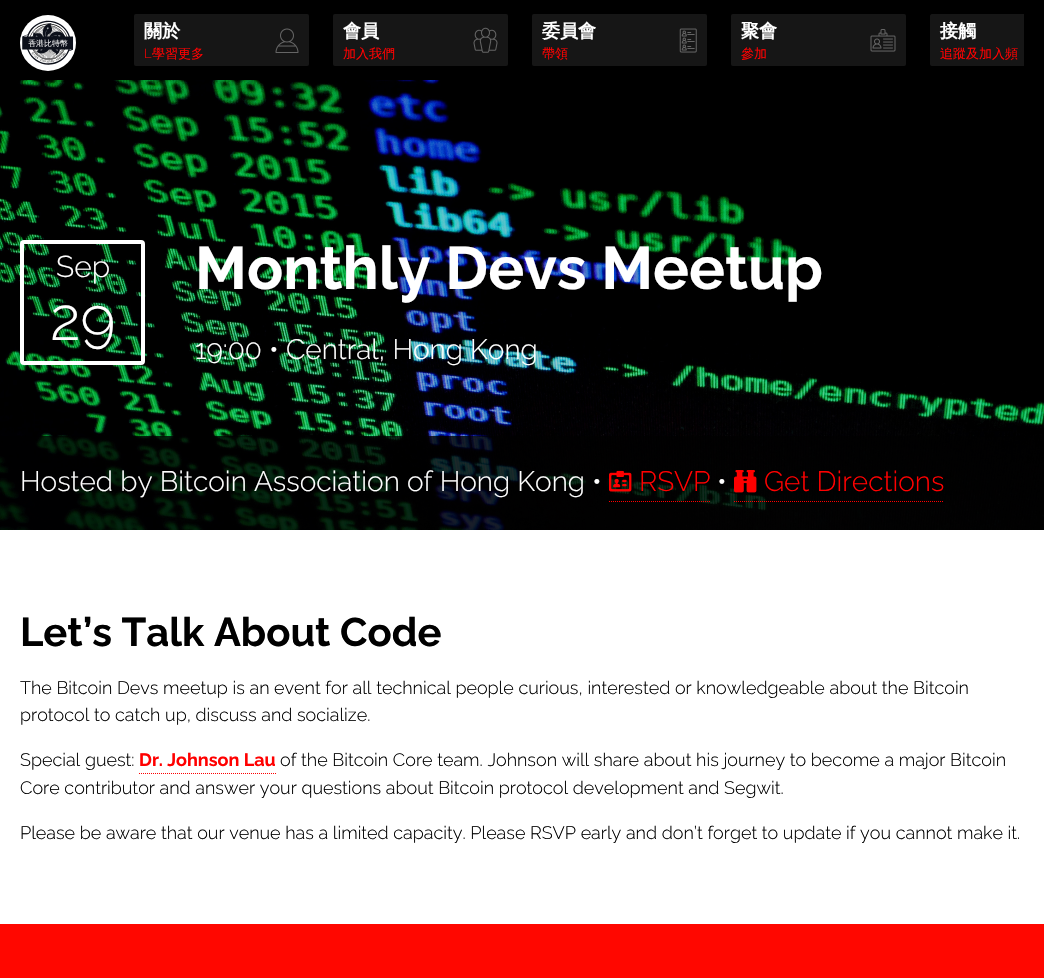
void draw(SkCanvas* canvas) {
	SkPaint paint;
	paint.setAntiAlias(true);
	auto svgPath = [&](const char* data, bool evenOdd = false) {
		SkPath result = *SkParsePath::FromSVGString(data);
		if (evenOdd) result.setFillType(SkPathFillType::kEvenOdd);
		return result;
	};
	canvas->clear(0xffffffff);
	canvas->drawImageRect(SkImages::DeferredFromEncodedData(SkData::MakeFromFileName("img1.png")), SkRect::MakeXYWH(0, 80, 1044, 450), SkSamplingOptions());
	paint.setColor(0xff000000);
	canvas->drawRect(SkRect::MakeXYWH(0, 0, 1044, 80), paint);
	canvas->drawImageRect(SkImages::DeferredFromEncodedData(SkData::MakeFromFileName("img2.png")), SkRect::MakeXYWH(20, 15, 56, 56), SkSamplingOptions());
	paint.setColor(0xff161616);
	canvas->drawRoundRect(SkRect::MakeXYWH(134, 14, 175, 52), 2, 2, paint);
	SkFont f1(fontMgr->matchFamilyStyle("WenQuanYi Zen Hei", SkFontStyle::Bold()), 18);
	f1.setSubpixel(true);
	paint.setColor(0xffffffff);
	canvas->drawString("關於", 144, 37, f1, paint);
	SkFont f2(fontMgr->matchFamilyStyle("Raleway", SkFontStyle(300, SkFontStyle::kNormal_Width, SkFontStyle::kUpright_Slant)), 13);
	f2.setSubpixel(true);
	paint.setColor(0xffff0000);
	canvas->drawString("L", 144, 58, f2, paint);
	SkFont f3(fontMgr->matchFamilyStyle("WenQuanYi Zen Hei", SkFontStyle(500, SkFontStyle::kNormal_Width, SkFontStyle::kUpright_Slant)), 13);
	f3.setSubpixel(true);
	canvas->drawString("學習更多", 152, 58, f3, paint);
	canvas->drawImageRect(SkImages::DeferredFromEncodedData(SkData::MakeFromFileName("img3.png")), SkRect::MakeXYWH(275, 28, 24, 25), SkSamplingOptions());
	paint.setColor(0xff161616);
	canvas->drawRoundRect(SkRect::MakeXYWH(333, 14, 175, 52), 2, 2, paint);
	paint.setColor(0xffffffff);
	canvas->drawString("會員", 343, 37, f1, paint);
	paint.setColor(0xffff0000);
	canvas->drawString("加入我們", 343, 58, f3, paint);
	canvas->drawImageRect(SkImages::DeferredFromEncodedData(SkData::MakeFromFileName("img4.png")), SkRect::MakeXYWH(473, 27, 25, 26), SkSamplingOptions());
	paint.setColor(0xff161616);
	canvas->drawRoundRect(SkRect::MakeXYWH(532, 14, 175, 52), 2, 2, paint);
	paint.setColor(0xffffffff);
	canvas->drawString("委員會", 542, 37, f1, paint);
	paint.setColor(0xffff0000);
	canvas->drawString("帶領", 542, 58, f3, paint);
	canvas->drawImageRect(SkImages::DeferredFromEncodedData(SkData::MakeFromFileName("img5.png")), SkRect::MakeXYWH(679, 28, 18, 25), SkSamplingOptions());
	paint.setColor(0xff161616);
	canvas->drawRoundRect(SkRect::MakeXYWH(731, 14, 175, 52), 2, 2, paint);
	paint.setColor(0xffffffff);
	canvas->drawString("聚會", 741, 37, f1, paint);
	paint.setColor(0xffff0000);
	canvas->drawString("參加", 741, 58, f3, paint);
	canvas->drawImageRect(SkImages::DeferredFromEncodedData(SkData::MakeFromFileName("img6.png")), SkRect::MakeXYWH(870, 29, 26, 23), SkSamplingOptions());
	paint.setColor(0xff161616);
	canvas->drawPath(svgPath("M932 14H1024V66H932C931 66 930 65 930 64V16C930 15 931 14 932 14Z"), paint);
	paint.setColor(0xffffffff);
	canvas->drawString("接觸", 940, 37, f1, paint);
	paint.setColor(0xffff0000);
	canvas->drawString("追蹤及加入頻", 940, 58, f3, paint);
	paint.setStroke(true);
	paint.setStrokeWidth(4);
	paint.setColor(0xffffffff);
	canvas->drawRoundRect(SkRect::MakeXYWH(22, 242, 121, 121), 2, 2, paint);
	SkFont f4(fontMgr->matchFamilyStyle("Raleway", SkFontStyle(300, SkFontStyle::kNormal_Width, SkFontStyle::kUpright_Slant)), 30);
	f4.setSubpixel(true);
	paint.setStroke(false);
	canvas->drawString("Sep", 56, 277, f4, paint);
	SkFont f5(fontMgr->matchFamilyStyle("Raleway", SkFontStyle(300, SkFontStyle::kNormal_Width, SkFontStyle::kUpright_Slant)), 60);
	f5.setSubpixel(true);
	canvas->drawString("29", 50, 340, f5, paint);
	SkFont f6(fontMgr->matchFamilyStyle("Raleway", SkFontStyle::Bold()), 60);
	f6.setSubpixel(true);
	canvas->drawString("Monthly Devs Meetup", 195, 289, f6, paint);
	SkFont f7(fontMgr->matchFamilyStyle("Raleway", SkFontStyle(300, SkFontStyle::kNormal_Width, SkFontStyle::kUpright_Slant)), 28);
	f7.setSubpixel(true);
	canvas->drawString("19:00 • Central, Hong Kong", 195, 359, f7, paint);
	paint.setColor(0xcc000000);
	canvas->drawRect(SkRect::MakeXYWH(0, 436, 1044, 94), paint);
	paint.setColor(0xffffffff);
	canvas->drawString("Hosted by Bitcoin Association of Hong Kong •", 20, 491, f7, paint);
	paint.setStroke(true);
	paint.setStrokeWidth(1);
	paint.setColor(0xffff0000);
	paint.setPathEffect(SkDashPathEffect::Make({{1, 1}}, 0));
	canvas->drawPath(svgPath("M609 501.5H710"), paint);
	paint.setPathEffect(nullptr);
	canvas->drawImageRect(SkImages::DeferredFromEncodedData(SkData::MakeFromFileName("img7.png")), SkRect::MakeXYWH(609, 470, 23, 22), SkSamplingOptions());
	paint.setStroke(false);
	canvas->drawString("RSVP", 639, 491, f7, paint);
	paint.setColor(0xffffffff);
	canvas->drawString("•", 717, 491, f7, paint);
	paint.setStroke(true);
	paint.setColor(0xffff0000);
	paint.setPathEffect(SkDashPathEffect::Make({{1, 1}}, 0));
	canvas->drawPath(svgPath("M734 501.5H944"), paint);
	paint.setPathEffect(nullptr);
	canvas->drawImageRect(SkImages::DeferredFromEncodedData(SkData::MakeFromFileName("img8.png")), SkRect::MakeXYWH(734, 470, 23, 23), SkSamplingOptions());
	paint.setStroke(false);
	canvas->drawString("Get Directions", 764, 491, f7, paint);
	SkFont f8(fontMgr->matchFamilyStyle("Raleway", SkFontStyle::Bold()), 40);
	f8.setSubpixel(true);
	paint.setColor(0xff000000);
	canvas->drawString("Let’s Talk About Code", 20, 646, f8, paint);
	SkFont f9(fontMgr->matchFamilyStyle("Raleway", SkFontStyle(300, SkFontStyle::kNormal_Width, SkFontStyle::kUpright_Slant)), 18);
	f9.setSubpixel(true);
	canvas->drawString("The Bitcoin Devs meetup is an event for all technical people curious, interested or knowledgeable about the Bitcoin", 20, 694, f9, paint);
	canvas->drawString("protocol to catch up, discuss and socialize.", 20, 721, f9, paint);
	canvas->drawString("Special guest:", 20, 766, f9, paint);
	paint.setStroke(true);
	paint.setColor(0xffff0000);
	paint.setPathEffect(SkDashPathEffect::Make({{1, 1}}, 0));
	canvas->drawPath(svgPath("M139 773.5H276"), paint);
	paint.setPathEffect(nullptr);
	SkFont f10(fontMgr->matchFamilyStyle("Raleway", SkFontStyle::Bold()), 18);
	f10.setSubpixel(true);
	paint.setStroke(false);
	canvas->drawString("Dr. Johnson Lau", 139, 766, f10, paint);
	paint.setColor(0xff000000);
	canvas->drawString("of the Bitcoin Core team. Johnson will share about his journey to become a major Bitcoin", 280, 766, f9, paint);
	canvas->drawString("Core contributor and answer your questions about Bitcoin protocol development and Segwit.", 20, 794, f9, paint);
	canvas->drawString("Please be aware that our venue has a limited capacity. Please RSVP early and don’t forget to update if you cannot make it.", 20, 839, f9, paint);
	paint.setColor(0xffff0700);
	canvas->drawRect(SkRect::MakeXYWH(0, 924, 1044, 54), paint);
}
